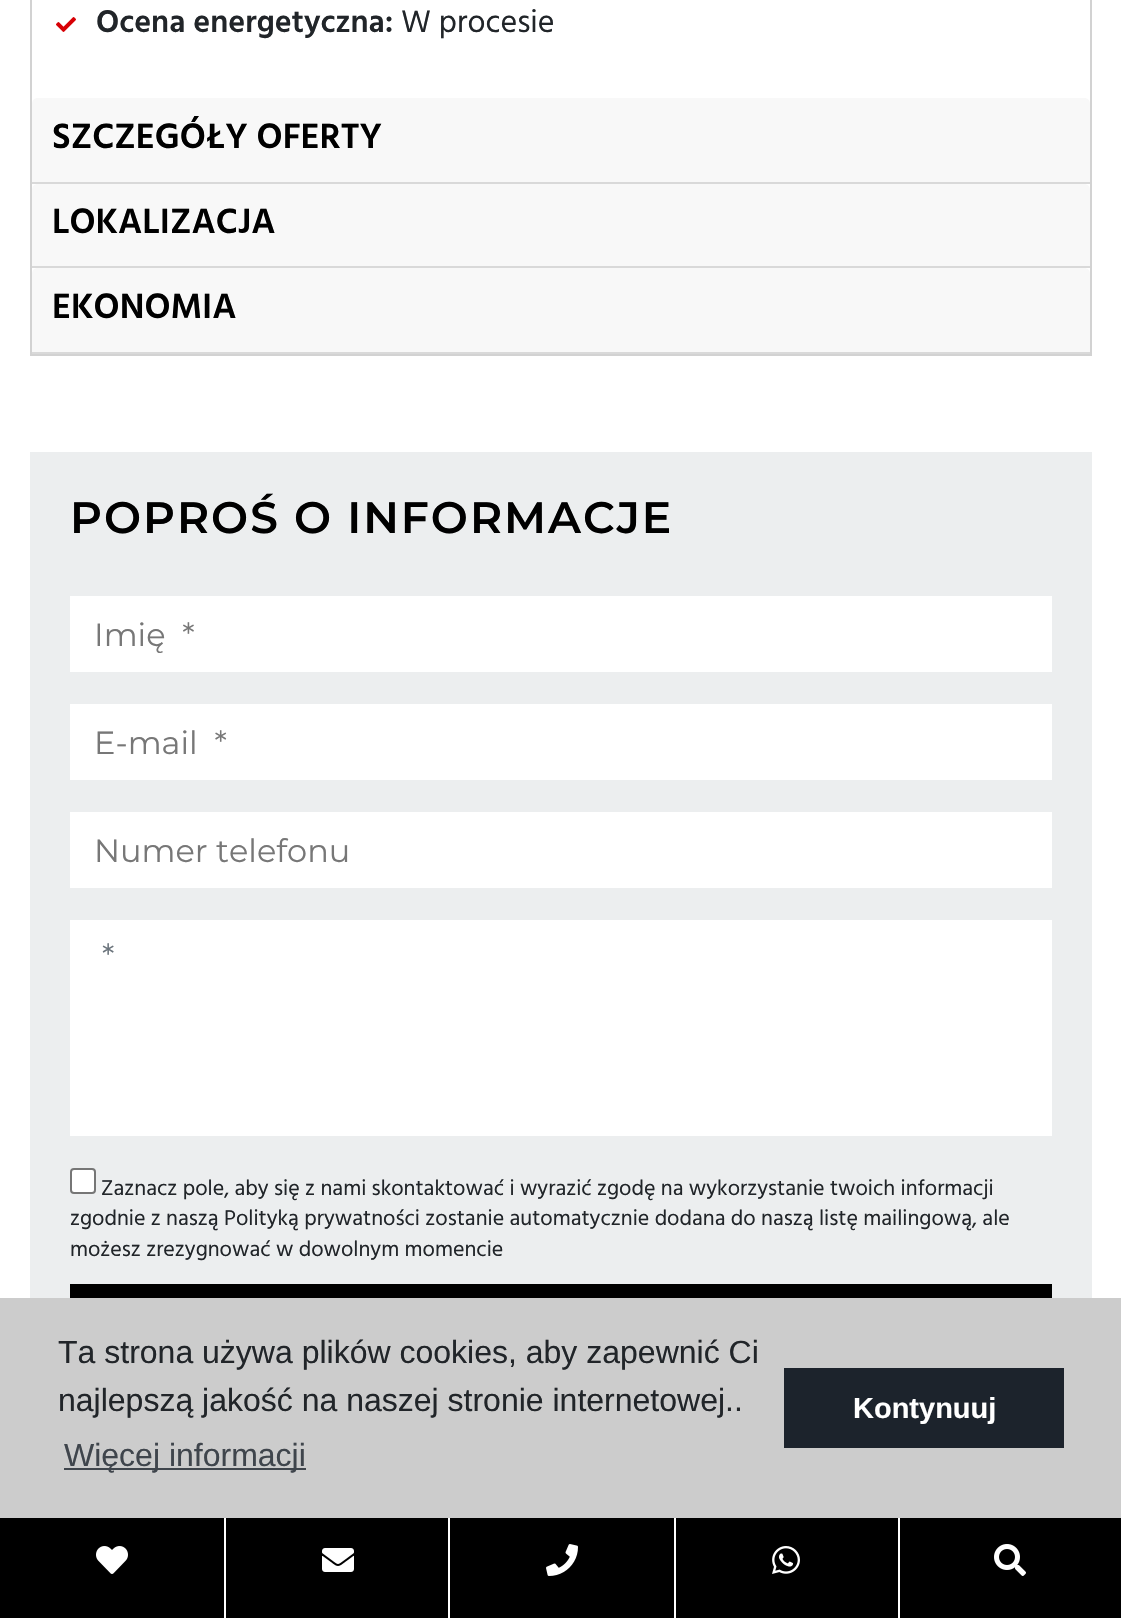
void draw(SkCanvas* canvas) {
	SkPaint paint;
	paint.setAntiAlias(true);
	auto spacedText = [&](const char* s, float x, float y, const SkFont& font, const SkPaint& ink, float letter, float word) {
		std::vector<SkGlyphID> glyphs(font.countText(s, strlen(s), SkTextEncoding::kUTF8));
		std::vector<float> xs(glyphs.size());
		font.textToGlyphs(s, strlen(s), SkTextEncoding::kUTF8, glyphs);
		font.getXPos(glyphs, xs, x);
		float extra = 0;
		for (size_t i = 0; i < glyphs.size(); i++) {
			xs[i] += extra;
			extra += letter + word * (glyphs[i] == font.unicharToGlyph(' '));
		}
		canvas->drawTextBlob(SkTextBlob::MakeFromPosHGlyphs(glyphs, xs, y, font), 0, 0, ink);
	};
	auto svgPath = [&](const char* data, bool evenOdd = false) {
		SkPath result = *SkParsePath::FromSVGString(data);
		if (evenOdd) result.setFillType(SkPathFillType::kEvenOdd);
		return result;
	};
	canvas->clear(0xffffffff);
	paint.setStroke(true);
	paint.setStrokeWidth(2);
	paint.setColor(0xffd2d2d2);
	canvas->drawRect(SkRect::MakeXYWH(31, -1, 1060, 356), paint);
	canvas->drawImageRect(SkImages::DeferredFromEncodedData(SkData::MakeFromFileName("img1.png")), SkRect::MakeXYWH(56, 17, 20, 15), SkSamplingOptions());
	SkFont f1(fontMgr->matchFamilyStyle("Hind", SkFontStyle(600, SkFontStyle::kNormal_Width, SkFontStyle::kUpright_Slant)), 32);
	f1.setSubpixel(true);
	paint.setStroke(false);
	paint.setColor(0xff212529);
	canvas->drawString("Ocena energetyczna:", 96, 32, f1, paint);
	SkFont f2(fontMgr->matchFamilyStyle("Hind", SkFontStyle::Normal()), 32);
	f2.setSubpixel(true);
	canvas->drawString("W procesie", 401, 32, f2, paint);
	paint.setColor(0xfff8f8f8);
	canvas->drawPath(svgPath("M38 98H1084C1087.5 98 1090 100.5 1090 104V184H32V104C32 100.5 34.5 98 38 98Z"), paint);
	paint.setColor(0xffd9d9d9);
	canvas->drawRect(SkRect::MakeXYWH(32, 182, 1058, 2), paint);
	SkFont f3(fontMgr->matchFamilyStyle("Hind", SkFontStyle(600, SkFontStyle::kNormal_Width, SkFontStyle::kUpright_Slant)), 36);
	f3.setSubpixel(true);
	paint.setColor(0xff000000);
	canvas->drawString("SZCZEGÓŁY OFERTY", 52, 148, f3, paint);
	paint.setColor(0xfff8f8f8);
	canvas->drawPath(svgPath("M38 184H1084C1087.5 184 1090 186.5 1090 190V268H32V190C32 186.5 34.5 184 38 184Z"), paint);
	paint.setColor(0xffd9d9d9);
	canvas->drawRect(SkRect::MakeXYWH(32, 266, 1058, 2), paint);
	paint.setColor(0xff000000);
	canvas->drawString("LOKALIZACJA", 52, 233, f3, paint);
	paint.setColor(0xfff8f8f8);
	canvas->drawPath(svgPath("M38 268H1084C1087.5 268 1090 270.5 1090 274V354H32V274C32 270.5 34.5 268 38 268Z"), paint);
	paint.setColor(0xffd9d9d9);
	canvas->drawRect(SkRect::MakeXYWH(32, 352, 1058, 2), paint);
	paint.setColor(0xff000000);
	canvas->drawString("EKONOMIA", 52, 318, f3, paint);
	paint.setColor(0xffeceeef);
	canvas->drawRect(SkRect::MakeXYWH(30, 452, 1062, 846), paint);
	SkFont f4(fontMgr->matchFamilyStyle("Montserrat", SkFontStyle(600, SkFontStyle::kNormal_Width, SkFontStyle::kUpright_Slant)), 44);
	f4.setSubpixel(true);
	paint.setColor(0xff000000);
	spacedText("POPROŚ O INFORMACJE", 70, 533, f4, paint, 2, 0);
	paint.setColor(0xffffffff);
	canvas->drawRect(SkRect::MakeXYWH(70, 596, 982, 76), paint);
	SkFont f5(fontMgr->matchFamilyStyle("Montserrat", SkFontStyle::Normal()), 32);
	f5.setSubpixel(true);
	paint.setColor(0xff777777);
	canvas->drawString("Imię  *", 94, 646, f5, paint);
	paint.setColor(0xffffffff);
	canvas->drawRect(SkRect::MakeXYWH(70, 704, 982, 76), paint);
	paint.setColor(0xff777777);
	canvas->drawString("E-mail  *", 94, 754, f5, paint);
	paint.setColor(0xffffffff);
	canvas->drawRect(SkRect::MakeXYWH(70, 812, 982, 76), paint);
	paint.setColor(0xff777777);
	canvas->drawString("Numer telefonu", 94, 862, f5, paint);
	paint.setColor(0xffffffff);
	canvas->drawRect(SkRect::MakeXYWH(70, 920, 982, 216), paint);
	paint.setColor(0xff6c757d);
	canvas->drawString("*", 102, 967, f5, paint);
	paint.setColor(0xffffffff);
	canvas->drawRoundRect(SkRect::MakeXYWH(71, 1169, 24, 24), 3, 3, paint);
	paint.setStroke(true);
	paint.setColor(0xff767676);
	canvas->drawRoundRect(SkRect::MakeXYWH(71, 1169, 24, 24), 3, 3, paint);
	SkFont f6(fontMgr->matchFamilyStyle("Hind", SkFontStyle::Normal()), 22);
	f6.setSubpixel(true);
	paint.setStroke(false);
	paint.setColor(0xff212529);
	canvas->drawString("Zaznacz pole, aby się z nami skontaktować i wyrazić zgodę na wykorzystanie twoich informacji", 101, 1195, f6, paint);
	canvas->drawString("zgodnie z naszą Polityką prywatności zostanie automatycznie dodana do naszą listę mailingową, ale", 70, 1225, f6, paint);
	canvas->drawString("możesz zrezygnować w dowolnym momencie", 70, 1256, f6, paint);
	paint.setColor(0xff000000);
	canvas->drawRect(SkRect::MakeXYWH(70, 1284, 982, 14), paint);
	canvas->drawRect(SkRect::MakeXYWH(0, 1518, 1121, 100), paint);
	paint.setColor(0xffffffff);
	canvas->drawRect(SkRect::MakeXYWH(224, 1510, 2, 108), paint);
	canvas->drawRect(SkRect::MakeXYWH(448, 1510, 2, 108), paint);
	canvas->drawRect(SkRect::MakeXYWH(674, 1510, 2, 108), paint);
	canvas->drawRect(SkRect::MakeXYWH(898, 1510, 2, 108), paint);
	paint.setColor(0xffcccccc);
	canvas->drawRect(SkRect::MakeXYWH(0, 1298, 1121, 220), paint);
	SkFont f7(fontMgr->matchFamilyStyle("Liberation Sans", SkFontStyle::Normal()), 32);
	f7.setSubpixel(true);
	paint.setColor(0xff212529);
	canvas->drawString("Ta strona używa plików cookies, aby zapewnić Ci", 58, 1363, f7, paint);
	canvas->drawString("najlepszą jakość na naszej stronie internetowej..", 58, 1411, f7, paint);
	paint.setColor(0xff3f454c);
	canvas->drawRect(SkRect::MakeXYWH(64, 1468, 242, 2), paint);
	canvas->drawString("Więcej informacji", 64, 1466, f7, paint);
	paint.setColor(0xff1c232c);
	canvas->drawRect(SkRect::MakeXYWH(784, 1368, 280, 80), paint);
	SkFont f8(fontMgr->matchFamilyStyle("Liberation Sans", SkFontStyle::Bold()), 29);
	f8.setSubpixel(true);
	paint.setColor(0xffffffff);
	canvas->drawString("Kontynuuj", 853, 1418, f8, paint);
	canvas->drawImageRect(SkImages::DeferredFromEncodedData(SkData::MakeFromFileName("img2.png")), SkRect::MakeXYWH(96, 1546, 32, 28), SkSamplingOptions());
	canvas->drawImageRect(SkImages::DeferredFromEncodedData(SkData::MakeFromFileName("img3.png")), SkRect::MakeXYWH(322, 1548, 32, 24), SkSamplingOptions());
	canvas->drawImageRect(SkImages::DeferredFromEncodedData(SkData::MakeFromFileName("img4.png")), SkRect::MakeXYWH(546, 1544, 32, 32), SkSamplingOptions());
	canvas->drawImageRect(SkImages::DeferredFromEncodedData(SkData::MakeFromFileName("img5.png")), SkRect::MakeXYWH(772, 1546, 28, 28), SkSamplingOptions());
	canvas->drawImageRect(SkImages::DeferredFromEncodedData(SkData::MakeFromFileName("img6.png")), SkRect::MakeXYWH(994, 1544, 32, 32), SkSamplingOptions());
}
